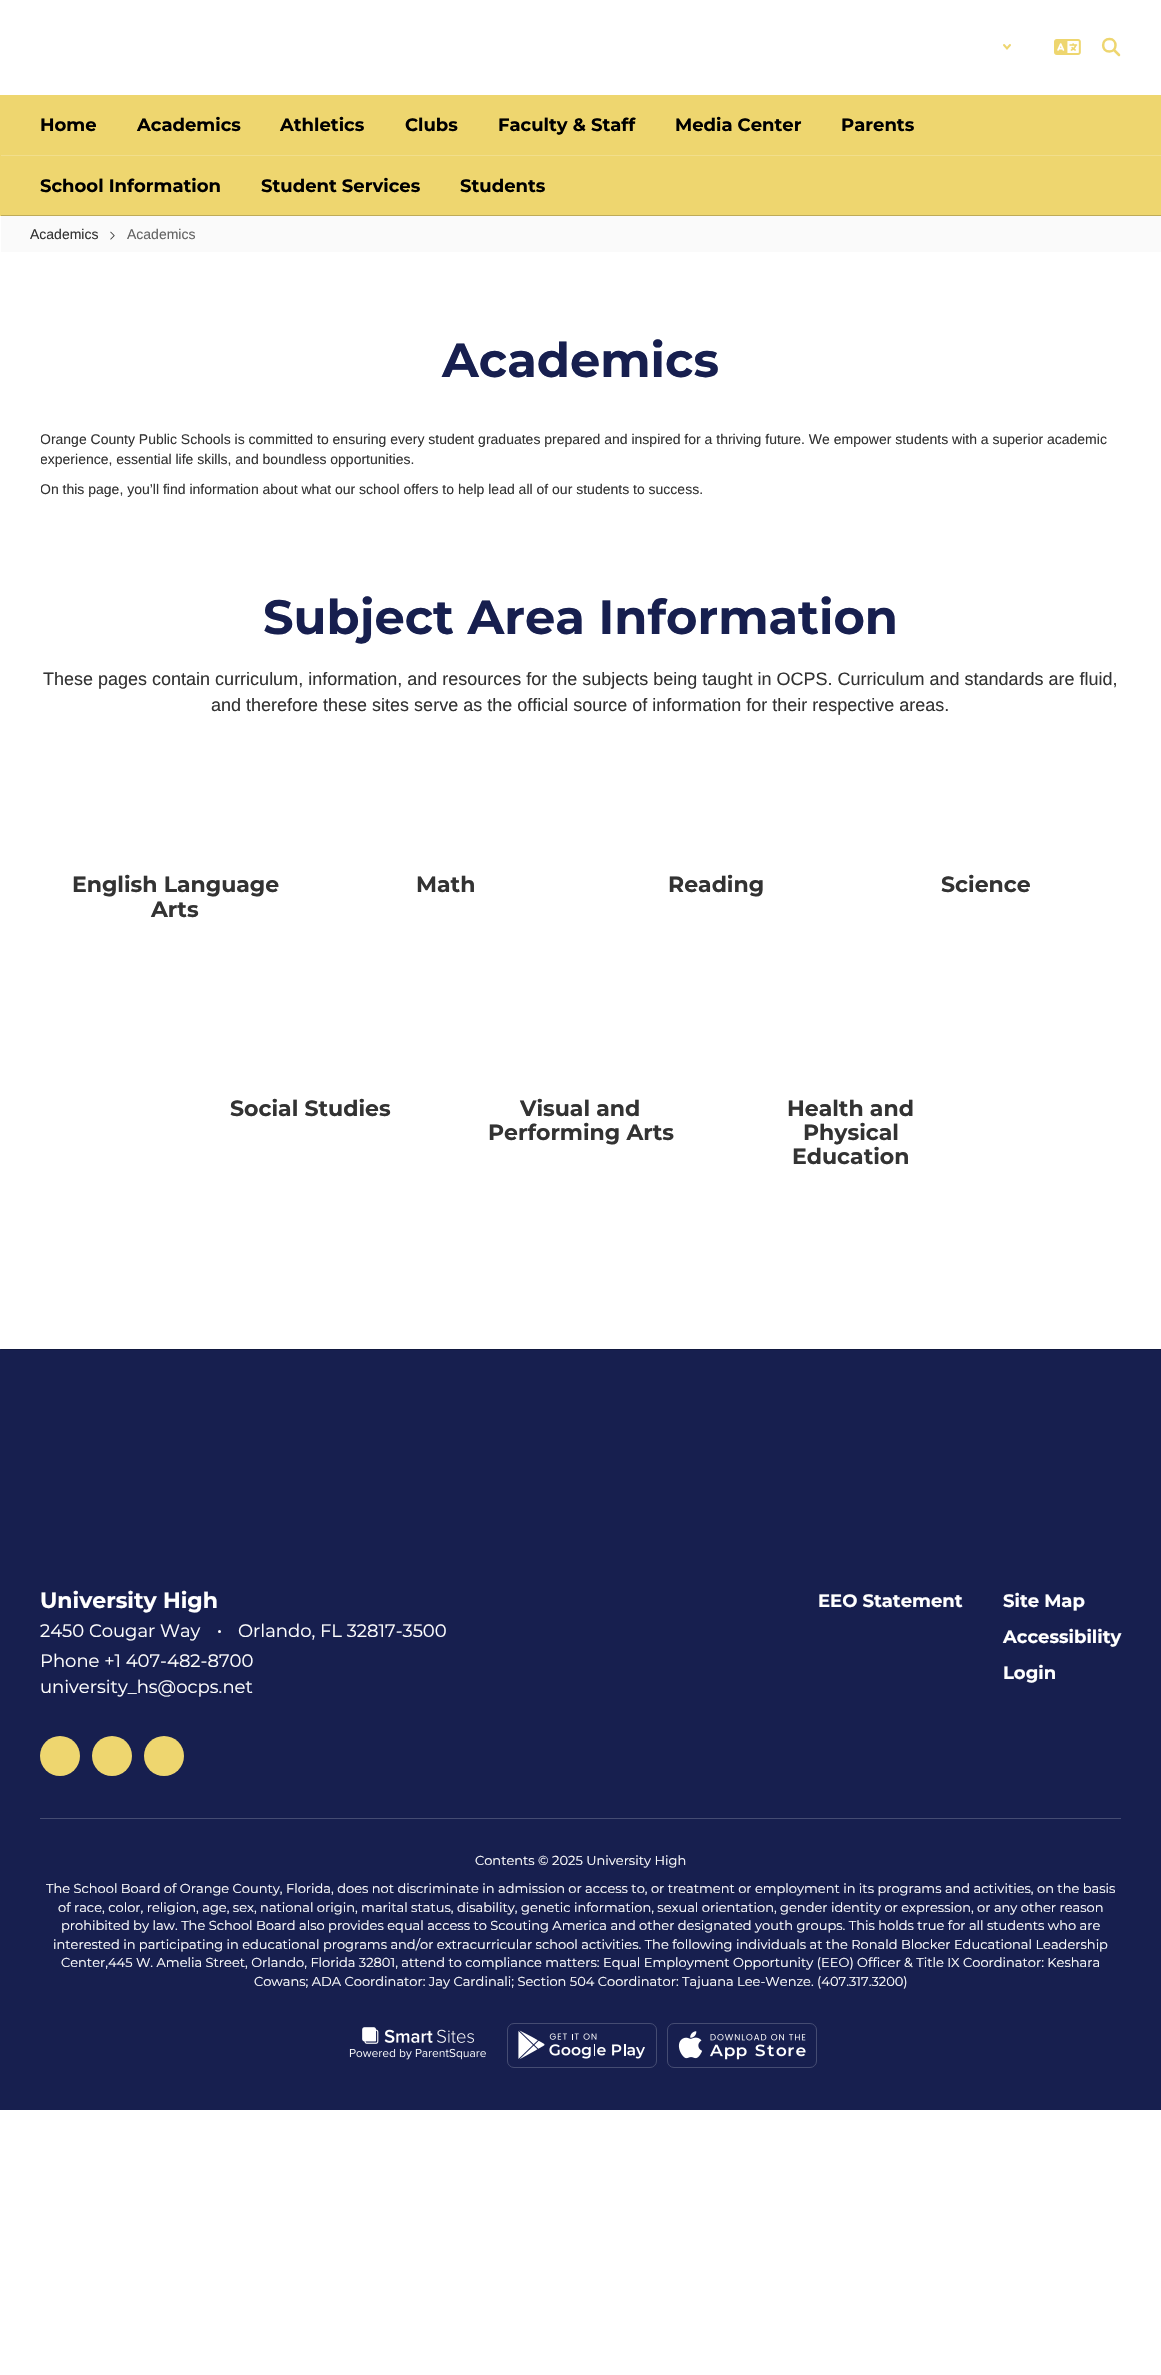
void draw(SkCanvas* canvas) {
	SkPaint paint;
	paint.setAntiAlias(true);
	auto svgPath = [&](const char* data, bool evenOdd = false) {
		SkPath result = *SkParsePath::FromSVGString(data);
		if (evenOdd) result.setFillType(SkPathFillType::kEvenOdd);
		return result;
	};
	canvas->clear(0xffffffff);
	paint.setStroke(true);
	paint.setStrokeWidth(2);
	paint.setStrokeCap(SkPaint::kRound_Cap);
	paint.setColor(0xffeed66f);
	canvas->drawPath(svgPath("M1004 45L1007 48.5L1010 45"), paint);
	canvas->drawImageRect(SkImages::DeferredFromEncodedData(SkData::MakeFromFileName("img1.png")), SkRect::MakeXYWH(1054, 39, 27, 16), SkSamplingOptions());
	paint.setStrokeWidth(2.5);
	paint.setStrokeCap(SkPaint::kSquare_Cap);
	paint.setStrokeJoin(SkPaint::kRound_Join);
	canvas->drawPath(svgPath("M1109.5 51.5C1117.5 51.5 1117.5 39 1109.5 39C1101 39 1101 51.5 1109.5 51.5Z"), paint);
	paint.setStrokeCap(SkPaint::kRound_Cap);
	canvas->drawPath(svgPath("M1119 55L1114 50"), paint);
	paint.setStroke(false);
	canvas->drawRect(SkRect::MakeXYWH(0, 95, 1161, 121), paint);
	SkFont f1(fontMgr->matchFamilyStyle("Montserrat", SkFontStyle::Bold()), 18);
	f1.setSubpixel(true);
	paint.setColor(0xff000000);
	canvas->drawString("Home", 40, 131, f1, paint);
	canvas->drawString("Academics", 137, 131, f1, paint);
	canvas->drawString("Athletics", 280, 131, f1, paint);
	canvas->drawString("Clubs", 405, 131, f1, paint);
	canvas->drawString("Faculty & Staff", 498, 131, f1, paint);
	canvas->drawString("Media Center", 675, 131, f1, paint);
	canvas->drawString("Parents", 841, 131, f1, paint);
	paint.setColor(0xfff1de8c);
	canvas->drawRect(SkRect::MakeXYWH(1, 155, 1160, 1), paint);
	paint.setColor(0xff000000);
	canvas->drawString("School Information", 40, 192, f1, paint);
	canvas->drawString("Student Services", 261, 192, f1, paint);
	canvas->drawString("Students", 460, 192, f1, paint);
	paint.setColor(0xffbeab59);
	canvas->drawRect(SkRect::MakeXYWH(1, 215, 1160, 1), paint);
	paint.setColor(0xfffafafa);
	canvas->drawRect(SkRect::MakeXYWH(1, 216, 1160, 36), paint);
	SkFont f2(fontMgr->matchFamilyStyle("Liberation Sans", SkFontStyle::Normal()), 14);
	f2.setSubpixel(true);
	paint.setColor(0xff333333);
	canvas->drawString("Academics", 30, 239, f2, paint);
	canvas->drawImageRect(SkImages::DeferredFromEncodedData(SkData::MakeFromFileName("img2.png")), SkRect::MakeXYWH(110, 231, 5, 9), SkSamplingOptions());
	paint.setColor(0xff636363);
	canvas->drawString("Academics", 127, 239, f2, paint);
	SkFont f3(fontMgr->matchFamilyStyle("Montserrat", SkFontStyle::Bold()), 48);
	f3.setSubpixel(true);
	paint.setColor(0xff171f4f);
	canvas->drawString("Academics", 442, 377, f3, paint);
	canvas->save();
	canvas->clipRect(SkRect::MakeXYWH(41, 429, 1081, 80));
	paint.setColor(0xff333333);
	canvas->drawString("Orange County Public Schools is committed to ensuring every student graduates prepared and inspired for a thriving future. We empower students with a superior academic", 40, 444, f2, paint);
	canvas->drawString("experience, essential life skills, and boundless opportunities.", 40, 464, f2, paint);
	canvas->drawString("On this page, you’ll find information about what our school offers to help lead all of our students to success.", 40, 494, f2, paint);
	canvas->restore();
	paint.setColor(0xff171f4f);
	canvas->drawString("Subject Area Information", 263, 634, f3, paint);
	SkFont f4(fontMgr->matchFamilyStyle("Liberation Sans", SkFontStyle::Normal()), 18);
	f4.setSubpixel(true);
	paint.setColor(0xff333333);
	canvas->drawString("These pages contain curriculum, information, and resources for the subjects being taught in OCPS. Curriculum and standards are fluid,", 43, 685, f4, paint);
	canvas->drawString("and therefore these sites serve as the official source of information for their respective areas.", 211, 711, f4, paint);
	SkFont f5(fontMgr->matchFamilyStyle("Montserrat", SkFontStyle::Bold()), 22);
	f5.setSubpixel(true);
	canvas->drawString("English Language", 72, 892, f5, paint);
	canvas->drawString("Arts", 151, 917, f5, paint);
	canvas->drawString("Math", 416, 892, f5, paint);
	canvas->drawString("Reading", 668, 892, f5, paint);
	canvas->drawString("Science", 941, 892, f5, paint);
	canvas->drawString("Social Studies", 230, 1116, f5, paint);
	canvas->drawString("Visual and", 520, 1116, f5, paint);
	canvas->drawString("Performing Arts", 488, 1140, f5, paint);
	canvas->drawString("Health and", 787, 1116, f5, paint);
	canvas->drawString("Physical", 803, 1140, f5, paint);
	canvas->drawString("Education", 792, 1164, f5, paint);
	paint.setColor(0xff171f4f);
	canvas->drawRect(SkRect::MakeXYWH(0, 1349, 1161, 761), paint);
	paint.setColor(0xff12193f);
	canvas->drawRect(SkRect::MakeXYWH(1, 1349, 1160, 1), paint);
	paint.setColor(0xffffffff);
	canvas->drawString("University High", 40, 1608, f5, paint);
	SkFont f6(fontMgr->matchFamilyStyle("Montserrat", SkFontStyle::Normal()), 18);
	f6.setSubpixel(true);
	canvas->drawString("2450 Cougar Way", 40, 1637, f6, paint);
	canvas->drawCircle(219.5, 1631.5, 1.5, paint);
	canvas->drawString("Orlando, FL 32817-3500", 238, 1637, f6, paint);
	canvas->drawString("Phone +1 407-482-8700", 40, 1667, f6, paint);
	canvas->drawString("university_hs@ocps.net", 40, 1693, f6, paint);
	paint.setColor(0xffeed66f);
	canvas->drawCircle(60, 1756, 20, paint);
	canvas->drawCircle(112, 1756, 20, paint);
	canvas->drawCircle(164, 1756, 20, paint);
	paint.setColor(0xffffffff);
	canvas->drawString("EEO Statement", 818, 1607, f1, paint);
	canvas->drawString("Site Map", 1003, 1607, f1, paint);
	canvas->drawString("Accessibility", 1003, 1643, f1, paint);
	canvas->drawString("Login", 1003, 1679, f1, paint);
	paint.setColor(0xff454c72);
	canvas->drawRect(SkRect::MakeXYWH(40, 1818, 1081, 1), paint);
	SkFont f7(fontMgr->matchFamilyStyle("Montserrat", SkFontStyle::Normal()), 13);
	f7.setSubpixel(true);
	paint.setColor(0xffffffff);
	canvas->drawString("Contents © 2025 University High", 475, 1865, f7, paint);
	canvas->drawString("The School Board of Orange County, Florida, does not discriminate in admission or access to, or treatment or employment in its programs and activities, on the basis", 46, 1893, f7, paint);
	canvas->drawString("of race, color, religion, age, sex, national origin, marital status, disability, genetic information, sexual orientation, gender identity or expression, or any other reason", 58, 1912, f7, paint);
	canvas->drawString("prohibited by law. The School Board also provides equal access to Scouting America and other designated youth groups. This holds true for all students who are", 61, 1930, f7, paint);
	canvas->drawString("interested in participating in educational programs and/or extracurricular school activities. The following individuals at the Ronald Blocker Educational Leadership", 53, 1949, f7, paint);
	canvas->drawString("Center,445 W. Amelia Street, Orlando, Florida 32801, attend to compliance matters: Equal Employment Opportunity (EEO) Officer & Title IX Coordinator: Keshara", 61, 1967, f7, paint);
	canvas->drawString("Cowans; ADA Coordinator: Jay Cardinali; Section 504 Coordinator: Tajuana Lee-Wenze. (407.317.3200)", 254, 1986, f7, paint);
	canvas->drawImageRect(SkImages::DeferredFromEncodedData(SkData::MakeFromFileName("img3.png")), SkRect::MakeXYWH(349, 2027, 137, 33), SkSamplingOptions());
	paint.setStroke(true);
	paint.setStrokeWidth(1);
	paint.setStrokeCap(SkPaint::kButt_Cap);
	paint.setStrokeJoin(SkPaint::kMiter_Join);
	paint.setColor(0xff454c72);
	canvas->drawRoundRect(SkRect::MakeXYWH(507.5, 2023.5, 149, 44), 6.5, 6.5, paint);
	canvas->drawImageRect(SkImages::DeferredFromEncodedData(SkData::MakeFromFileName("img4.png")), SkRect::MakeXYWH(518, 2030, 127, 30), SkSamplingOptions());
	canvas->drawRoundRect(SkRect::MakeXYWH(667.5, 2023.5, 149, 44), 6.5, 6.5, paint);
	canvas->drawImageRect(SkImages::DeferredFromEncodedData(SkData::MakeFromFileName("img5.png")), SkRect::MakeXYWH(678, 2031, 128, 29), SkSamplingOptions());
}
